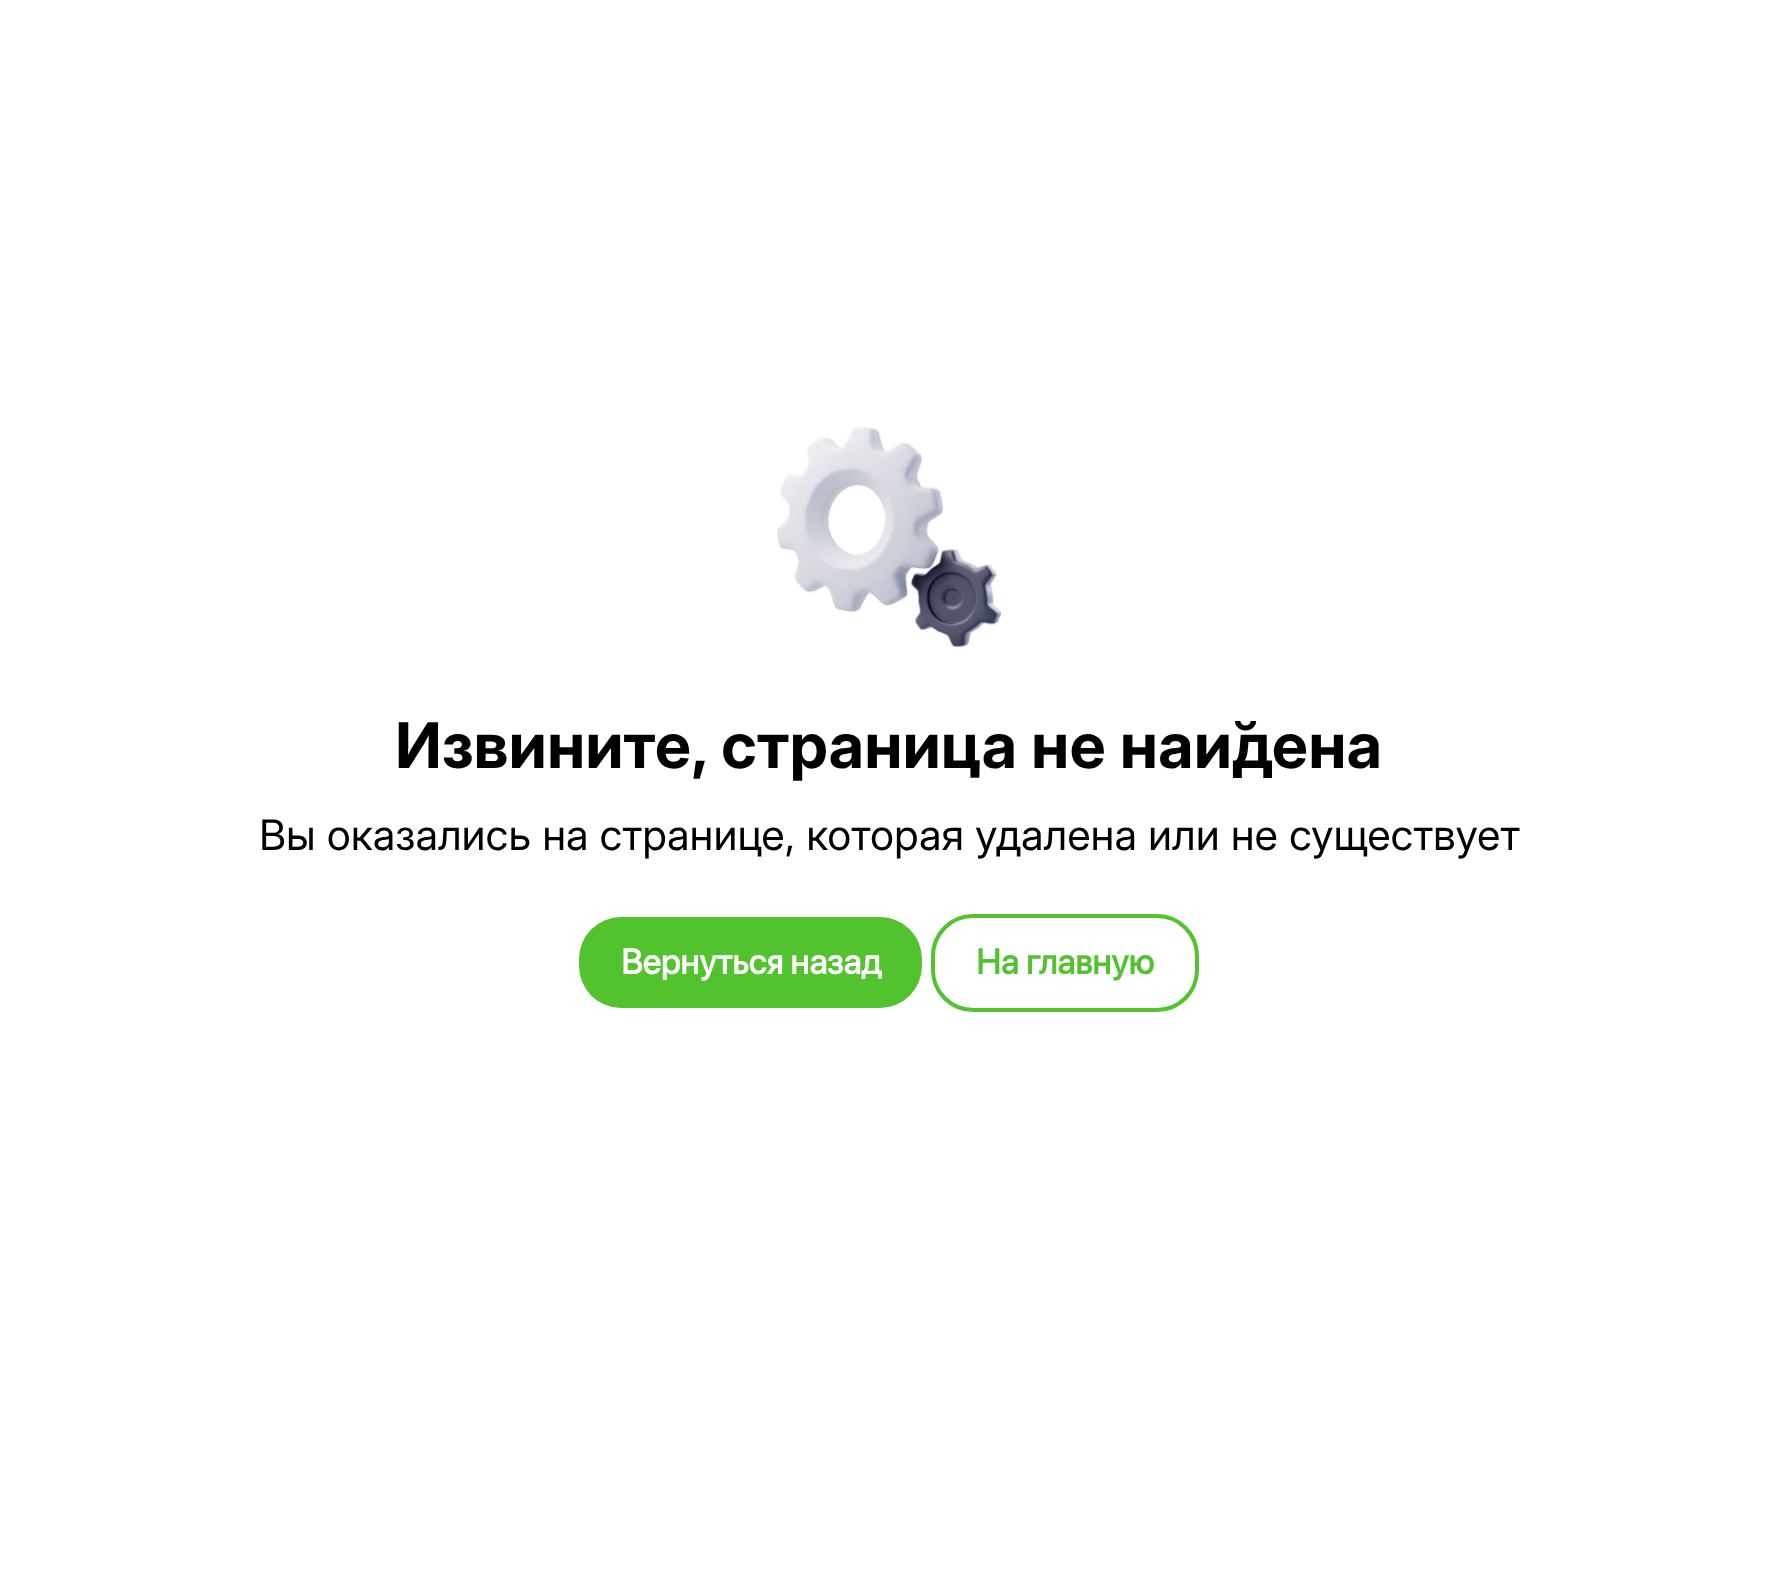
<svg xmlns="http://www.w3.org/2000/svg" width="1777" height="1577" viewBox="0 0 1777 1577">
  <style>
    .t1 { font: bold 63px Inter; fill: #000; }
    .t2 { font: 42px Inter; fill: #000; }
    .t3 { font: bold 35px SF Pro Display; fill: #fff; }
    .t4 { font: bold 35px SF Pro Display; fill: #52c32f; }
  </style>
  <rect width="100%" height="100%" fill="#fff"/>
  <image x="777" y="427" width="224" height="221" href="images/1.png"/>
  <text x="395" y="768" class="t1">Извините, страница не найдена</text>
  <text x="259" y="850" class="t2">Вы оказались на странице, которая удалена или не существует</text>
  <rect x="579" y="917" width="343" height="91" rx="42" fill="#52c32f"/>
  <text x="621" y="974" class="t3">Вернуться назад</text>
  <rect x="933" y="916" width="264" height="94" rx="40" fill="none" stroke="#52c32f" stroke-width="4"/>
  <text x="976" y="974" class="t4">На главную</text>
</svg>
